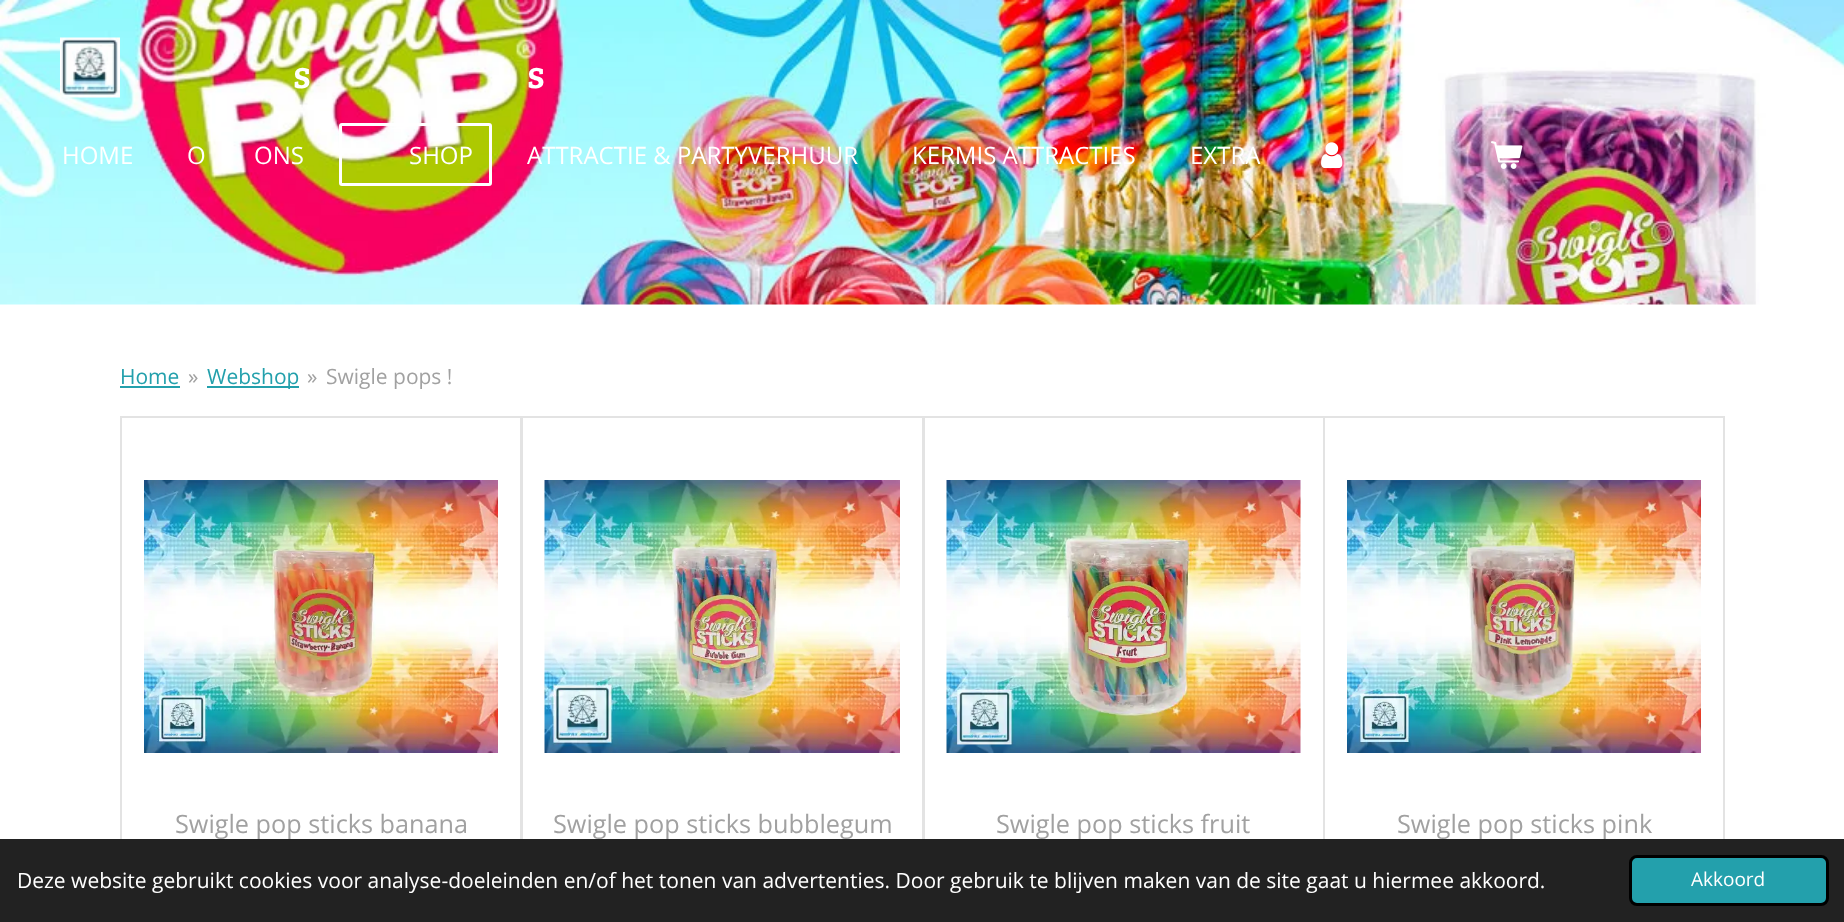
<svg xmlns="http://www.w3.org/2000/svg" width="1844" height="922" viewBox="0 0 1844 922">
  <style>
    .t1 { font: 39px Bree Serif; fill: #fff; }
    .t2 { font: 24px Open Sans; fill: #fff; }
    .t3 { font: 21px Open Sans; fill: #23a0ac; }
    .t4 { font: 21px Open Sans; fill: #a1a1a1; }
    .t5 { font: 25.25px Open Sans; fill: #a1a1a1; }
    .t6 { font: 21px Open Sans; fill: #fff; }
    .t7 { font: 19px Open Sans; fill: #fff; }
  </style>
  <rect width="100%" height="100%" fill="#fff"/>
  <image x="0" y="0" width="1844" height="305" href="images/1.png"/>
  <image x="60" y="37" width="60" height="61" href="images/2.png"/>
  <text x="293" y="88" class="t1">s</text>
  <text x="527" y="88" class="t1">s</text>
  <text x="62" y="164" class="t2">HOME</text>
  <text x="187" y="164" class="t2">O</text>
  <text x="254" y="164" class="t2">ONS</text>
  <rect x="340.5" y="124.5" width="150" height="60" rx="1.5" fill="none" stroke="#fff" stroke-width="3"/>
  <text x="409" y="164" class="t2">SHOP</text>
  <text x="527" y="164" class="t2">ATTRACTIE &amp; PARTYVERHUUR</text>
  <text x="912" y="164" class="t2">KERMIS ATTRACTIES</text>
  <text x="1190" y="164" class="t2">EXTRA</text>
  <image x="1321" y="142" width="22" height="27" href="images/3.png"/>
  <image x="1491" y="141" width="32" height="28" href="images/4.png"/>
  <text x="120" y="384" class="t3">Home</text>
  <rect x="120" y="386" width="60" height="2" fill="#23a0ac"/>
  <text x="188" y="384" class="t4">»</text>
  <rect x="207" y="386" width="92" height="2" fill="#23a0ac"/>
  <text x="207" y="384" class="t3">Webshop</text>
  <text x="307" y="384" class="t4">»</text>
  <text x="326" y="384" class="t4">Swigle pops !</text>
  <rect x="121" y="417" width="400" height="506" fill="none" stroke="#e3e3e3" stroke-width="2"/>
  <image x="144" y="480" width="354" height="273" href="images/5.png"/>
  <text x="175" y="833" class="t5">Swigle pop sticks banana</text>
  <rect x="522" y="417" width="401" height="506" fill="none" stroke="#e3e3e3" stroke-width="2"/>
  <image x="544" y="480" width="356" height="273" href="images/6.png"/>
  <text x="553" y="833" class="t5">Swigle pop sticks bubblegum</text>
  <rect x="924" y="417" width="400" height="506" fill="none" stroke="#e3e3e3" stroke-width="2"/>
  <image x="946" y="480" width="355" height="273" href="images/7.png"/>
  <text x="996" y="833" class="t5">Swigle pop sticks fruit</text>
  <rect x="1324" y="417" width="400" height="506" fill="none" stroke="#e3e3e3" stroke-width="2"/>
  <image x="1347" y="480" width="354" height="273" href="images/8.png"/>
  <text x="1397" y="833" class="t5">Swigle pop sticks pink</text>
  <rect x="0" y="839" width="1844" height="83" fill="#222"/>
  <text x="17" y="888" class="t6">Deze website gebruikt cookies voor analyse-doeleinden en/of het tonen van advertenties. Door gebruik te blijven maken van de site gaat u hiermee akkoord.</text>
  <rect x="1630.5" y="856.5" width="197" height="48" rx="6.5" fill="#23a0ac" stroke="#000" stroke-width="3"/>
  <text x="1691" y="886" class="t7">Akkoord</text>
</svg>
